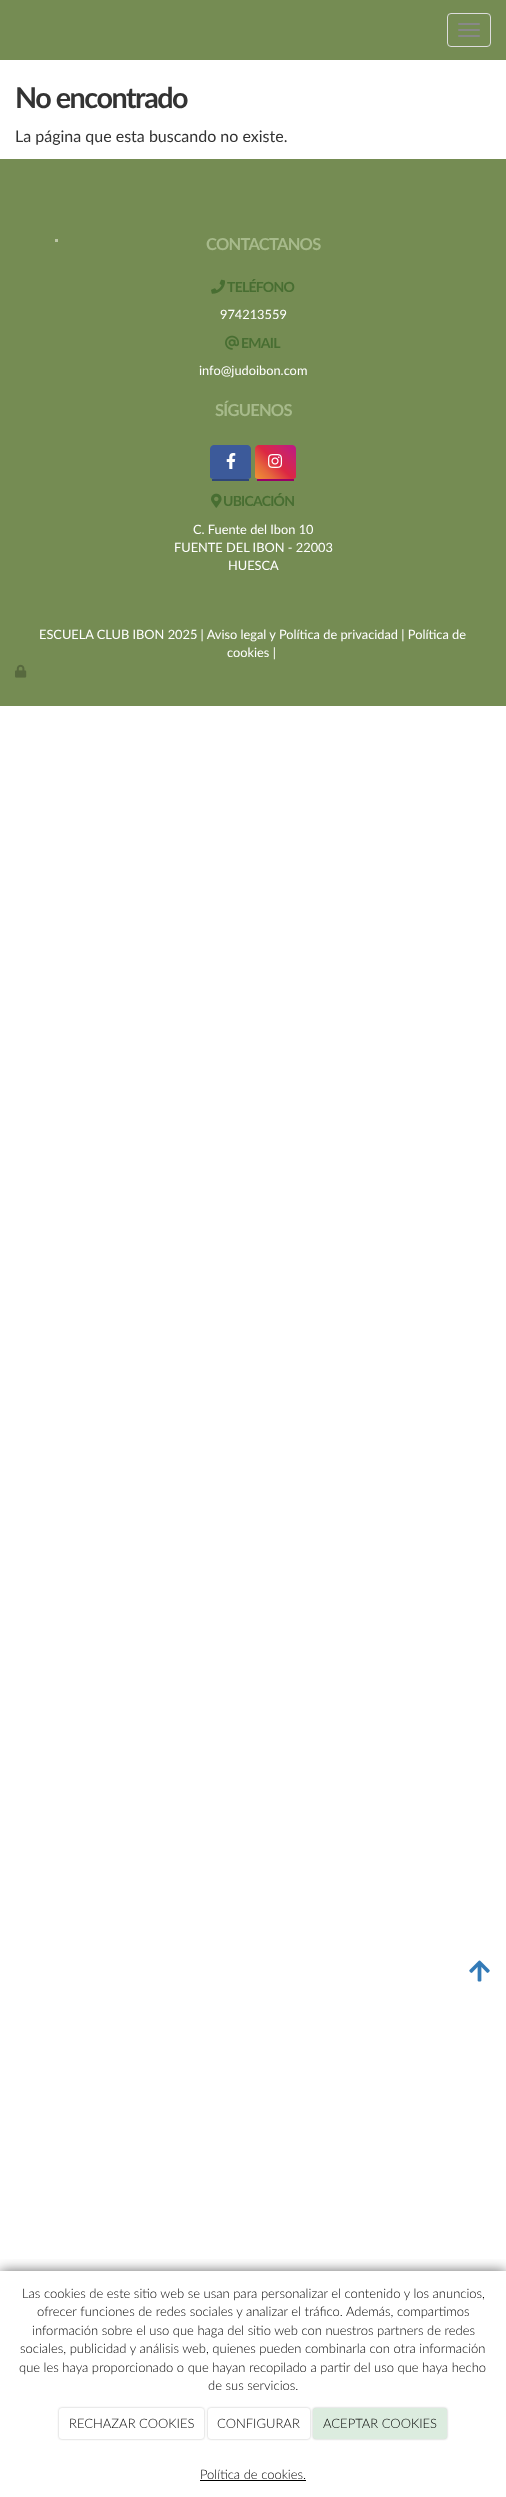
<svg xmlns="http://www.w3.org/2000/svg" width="506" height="2497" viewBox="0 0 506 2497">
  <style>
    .t1 { font: bold 28.75px Lato; letter-spacing: -1.5px; fill: #333; }
    .t2 { font: 16px Lato; fill: #333; }
    .t3 { font: bold 16.5px Lato; letter-spacing: -0.75px; fill: #a7ba8b; }
    .t4 { font: bold 14px Lato; letter-spacing: -0.75px; fill: #486e32; }
    .t5 { font: 12.8px Lato; fill: #fff; }
    .t6 { font: 300 13px Lato; fill: #000; }
  </style>
  <defs>
    <clipPath id="clip1"><rect x="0" y="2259" width="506" height="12"/></clipPath>
  </defs>
  <rect width="100%" height="100%" fill="#fff"/>
  <rect x="0" y="0" width="506" height="60" fill="#758c53"/>
  <rect x="447.5" y="13.5" width="43" height="33" rx="3.5" fill="none" stroke="#ddd"/>
  <rect x="458" y="23" width="22" height="2" rx="1" fill="#888"/>
  <rect x="458" y="29" width="22" height="2" rx="1" fill="#888"/>
  <rect x="458" y="35" width="22" height="2" rx="1" fill="#888"/>
  <text x="15" y="108" class="t1">No encontrado</text>
  <text x="15" y="142" class="t2">La página que esta buscando no existe.</text>
  <rect x="0" y="159" width="506" height="547" fill="#758c53"/>
  <rect x="55" y="239" width="3" height="3" fill="#bbc5a6"/>
  <text x="206" y="250" class="t3">CONTACTANOS</text>
  <image x="211" y="279" width="14" height="15" href="images/1.png"/>
  <text x="227" y="292" class="t4">TELÉFONO</text>
  <text x="220" y="319" class="t5">974213559</text>
  <image x="225" y="335" width="14" height="15" href="images/2.png"/>
  <text x="241" y="348" class="t4">EMAIL</text>
  <text x="199" y="375" class="t5">info@judoibon.com</text>
  <text x="215" y="416" class="t3">SÍGUENOS</text>
  <path d="M214 445H247C249 445 251 447 251 449V477C251 478 249 479 247 479H214C212 479 210 478 210 477V449C210 447 212 445 214 445Z" fill="#3c5a9a"/>
  <rect x="212" y="479" width="37" height="2" fill="#2f4678"/>
  <image x="226" y="453" width="10" height="16" href="images/3.png"/>
  <image x="255" y="445" width="41" height="34" href="images/4.png"/>
  <rect x="257" y="479" width="37" height="2" fill="#906"/>
  <image x="268" y="454" width="15" height="14" href="images/5.png"/>
  <image x="211" y="493" width="11" height="15" href="images/6.png"/>
  <text x="223" y="506" class="t4">UBICACIÓN</text>
  <text x="193" y="534" class="t5">C. Fuente del Ibon 10</text>
  <text x="174" y="552" class="t5">FUENTE DEL IBON - 22003</text>
  <text x="228" y="570" class="t5">HUESCA</text>
  <text x="39" y="639" class="t5">ESCUELA CLUB IBON 2025 | Aviso legal y Política de privacidad | Política de</text>
  <text x="227" y="657" class="t5">cookies |</text>
  <image x="15" y="664" width="12" height="14" href="images/7.png"/>
  <image x="469" y="1960" width="21" height="22" href="images/8.png"/>
  <g clip-path="url(#clip1)">
    <rect x="0" y="2271" width="506" height="226" fill="#00000099" filter="blur(6.5px)"/>
  </g>
  <text x="22" y="2298" class="t6">Las cookies de este sitio web se usan para personalizar el contenido y los anuncios,</text>
  <text x="37" y="2316" class="t6">ofrecer funciones de redes sociales y analizar el tráfico. Además, compartimos</text>
  <text x="32" y="2335" class="t6">información sobre el uso que haga del sitio web con nuestros partners de redes</text>
  <text x="20" y="2353" class="t6">sociales, publicidad y análisis web, quienes pueden combinarla con otra información</text>
  <text x="19" y="2372" class="t6">que les haya proporcionado o que hayan recopilado a partir del uso que haya hecho</text>
  <text x="208" y="2390" class="t6">de sus servicios.</text>
  <rect x="59" y="2408" width="145" height="31" rx="3" fill="#00000040" filter="blur(1px)"/>
  <rect x="59" y="2408" width="145" height="31" rx="3" fill="#fff"/>
  <text x="69" y="2428" class="t6">RECHAZAR COOKIES</text>
  <rect x="208" y="2408" width="102" height="31" rx="3" fill="#00000040" filter="blur(1px)"/>
  <rect x="208" y="2408" width="102" height="31" rx="3" fill="#fff"/>
  <text x="217" y="2428" class="t6">CONFIGURAR</text>
  <rect x="313" y="2408" width="134" height="31" rx="3" fill="#00000040" filter="blur(1px)"/>
  <rect x="313" y="2408" width="134" height="31" rx="3" fill="#dcecdf"/>
  <text x="323" y="2428" class="t6">ACEPTAR COOKIES</text>
  <text x="200" y="2479" class="t6">Política de cookies.</text>
  <rect x="200" y="2480" width="106" height="1" fill="#000"/>
</svg>
